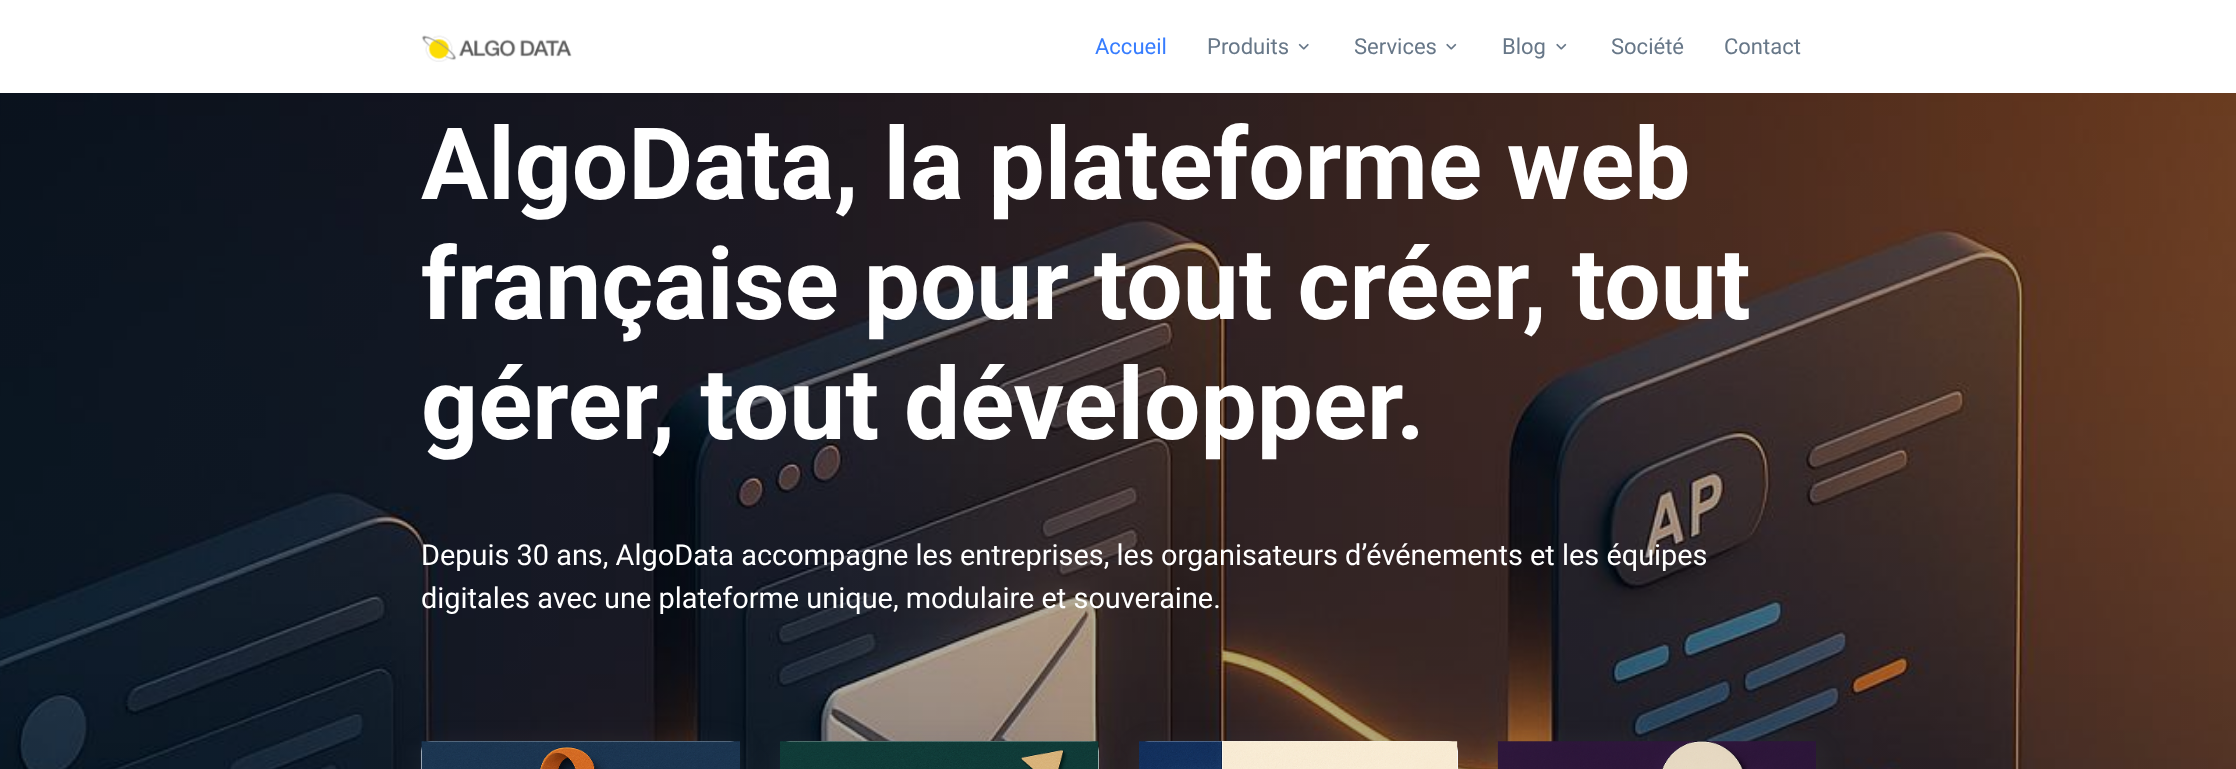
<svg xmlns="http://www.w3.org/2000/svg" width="2236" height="769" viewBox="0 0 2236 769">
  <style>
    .t1 { font: 22px Roboto; fill: #377dff; }
    .t2 { font: 22px Roboto; fill: #677788; }
    .t3 { font: bold 100px Roboto; fill: #fff; }
    .t4 { font: 28.9px Roboto; fill: #fff; }
  </style>
  <rect width="100%" height="100%" fill="#fff"/>
  <image x="421" y="35" width="151" height="27" href="images/1.png"/>
  <text x="1095" y="54" class="t1">Accueil</text>
  <text x="1207" y="54" class="t2">Produits</text>
  <image x="1298" y="43" width="11" height="7" href="images/2.png"/>
  <text x="1354" y="54" class="t2">Services</text>
  <image x="1446" y="43" width="11" height="7" href="images/3.png"/>
  <text x="1502" y="54" class="t2">Blog</text>
  <image x="1556" y="43" width="11" height="7" href="images/3.png"/>
  <text x="1611" y="54" class="t2">Société</text>
  <text x="1724" y="54" class="t2">Contact</text>
  <image x="0" y="93" width="2236" height="676" href="images/4.png"/>
  <text x="421" y="199" class="t3">AlgoData, la plateforme web</text>
  <text x="421" y="319" class="t3">française pour tout créer, tout</text>
  <text x="421" y="439" class="t3">gérer, tout développer.</text>
  <text x="421" y="565" class="t4">Depuis 30 ans, AlgoData accompagne les entreprises, les organisateurs d’événements et les équipes</text>
  <text x="421" y="608" class="t4">digitales avec une plateforme unique, modulaire et souveraine.</text>
  <rect x="421" y="749" width="319" height="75" rx="10" fill="#8c98a41f" filter="blur(15px)"/>
  <rect x="421" y="741" width="319" height="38" rx="10" fill="#f7faff"/>
  <image x="421" y="741" width="319" height="28" href="images/5.png"/>
  <rect x="780" y="749" width="319" height="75" rx="10" fill="#8c98a41f" filter="blur(15px)"/>
  <rect x="780" y="741" width="319" height="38" rx="10" fill="#fff"/>
  <image x="780" y="741" width="319" height="28" href="images/6.png"/>
  <rect x="1139" y="749" width="319" height="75" rx="10" fill="#8c98a41f" filter="blur(15px)"/>
  <rect x="1139" y="741" width="319" height="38" rx="10" fill="#f7faff"/>
  <image x="1139" y="741" width="319" height="28" href="images/7.png"/>
  <rect x="1498" y="749" width="318" height="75" rx="10" fill="#8c98a41f" filter="blur(15px)"/>
  <image x="1497" y="741" width="319" height="28" href="images/8.png"/>
</svg>
